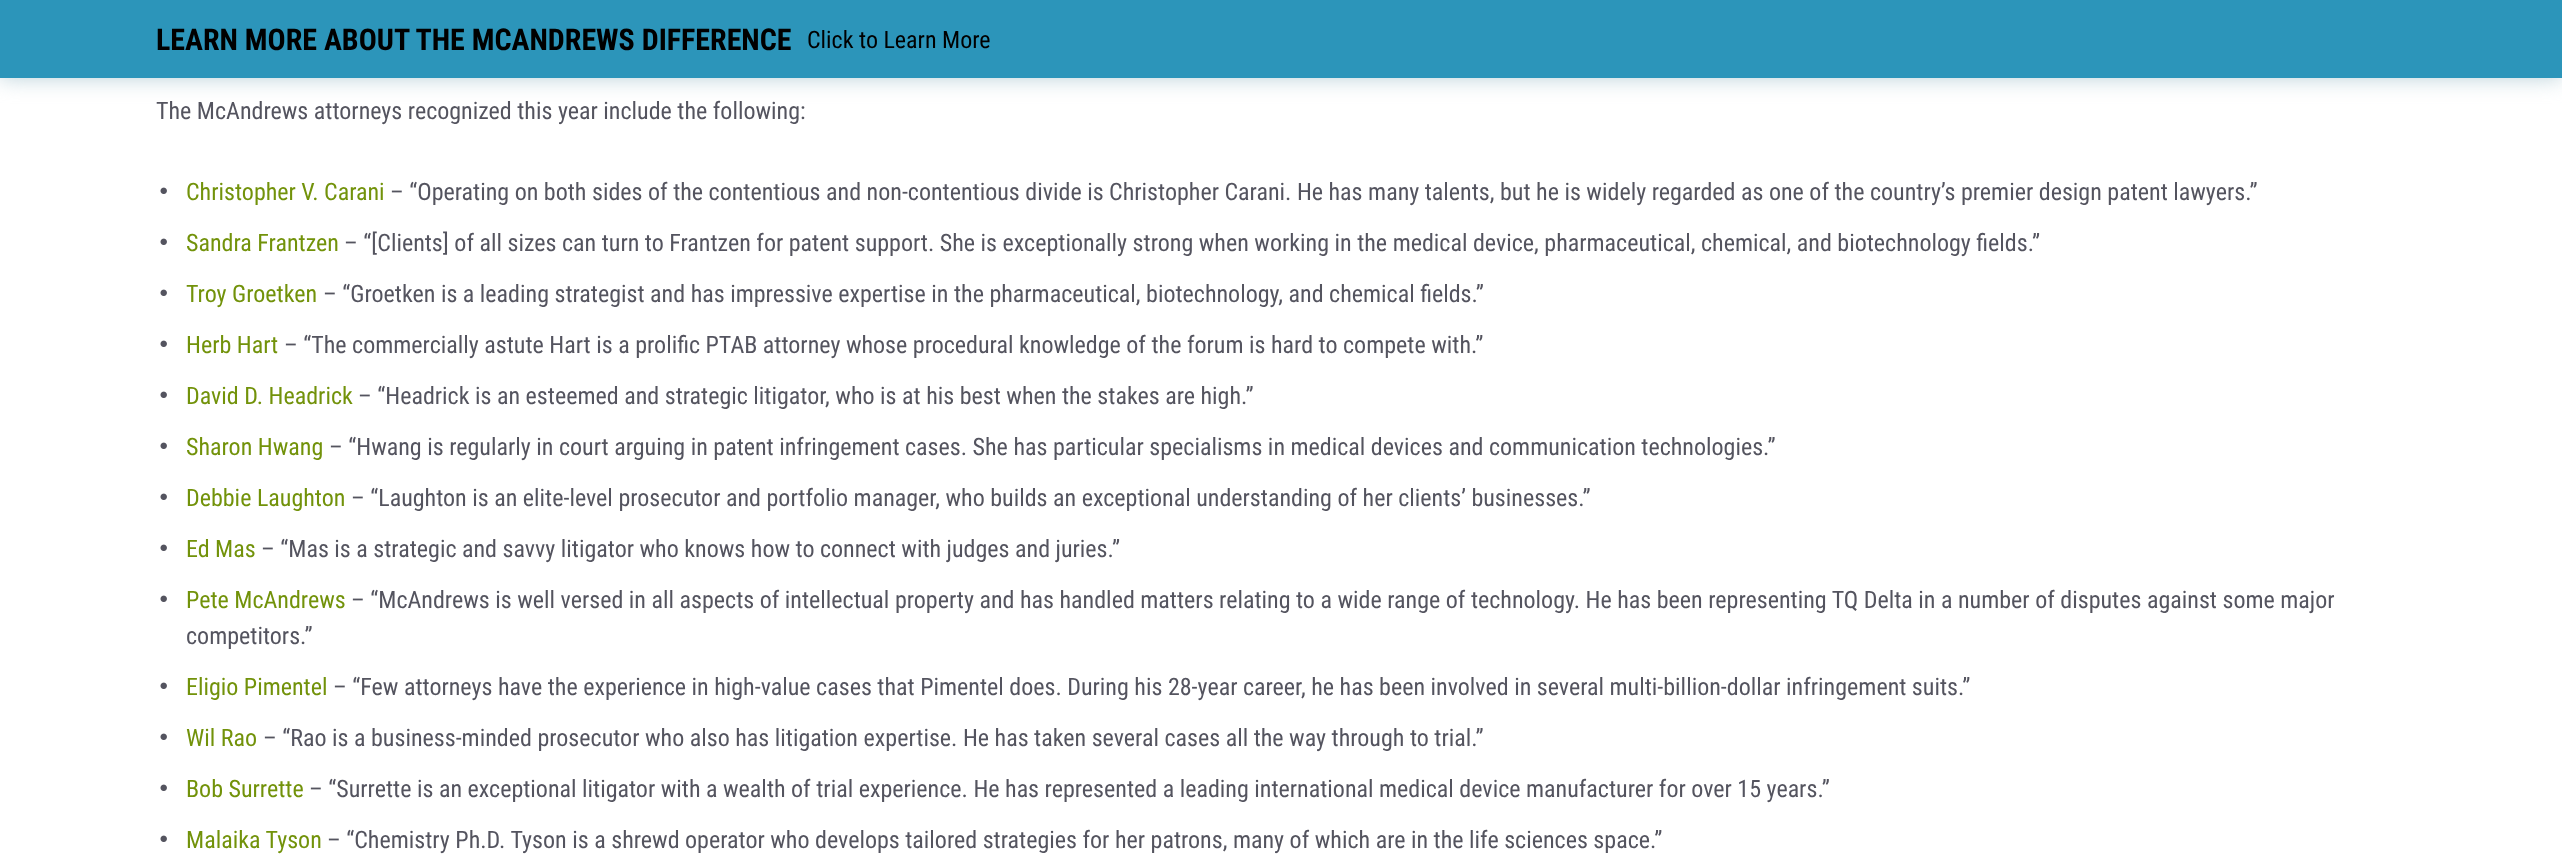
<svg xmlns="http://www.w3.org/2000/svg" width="2562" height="860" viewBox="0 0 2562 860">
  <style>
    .t1 { font: bold 30px Roboto Condensed; fill: #000; }
    .t2 { font: 24px Roboto Condensed; fill: #000; }
    .t3 { font: 24px Roboto Condensed; fill: #54545f; }
    .t4 { font: 24px Roboto Condensed; fill: #72920a; }
  </style>
  <rect width="100%" height="100%" fill="#fff"/>
  <rect x="0" y="0" width="2562" height="78" fill="#b8d0d8" filter="blur(10.5px)"/>
  <rect x="0" y="0" width="2562" height="78" fill="#2c95ba"/>
  <text x="156" y="50" class="t1">LEARN MORE ABOUT THE MCANDREWS DIFFERENCE</text>
  <text x="807" y="48" class="t2">Click to Learn More</text>
  <text x="156" y="119" class="t3">The McAndrews attorneys recognized this year include the following:</text>
  <image x="160" y="187" width="7" height="7" href="images/1.png"/>
  <text x="186" y="200" class="t4">Christopher V. Carani</text>
  <text x="390" y="200" class="t3">– “Operating on both sides of the contentious and non-contentious divide is Christopher Carani. He has many talents, but he is widely regarded as one of the country’s premier design patent lawyers.”</text>
  <image x="160" y="238" width="7" height="7" href="images/1.png"/>
  <text x="186" y="251" class="t4">Sandra Frantzen</text>
  <text x="344" y="251" class="t3">– “[Clients] of all sizes can turn to Frantzen for patent support. She is exceptionally strong when working in the medical device, pharmaceutical, chemical, and biotechnology fields.”</text>
  <image x="160" y="289" width="7" height="7" href="images/1.png"/>
  <text x="186" y="302" class="t4">Troy Groetken</text>
  <text x="323" y="302" class="t3">– “Groetken is a leading strategist and has impressive expertise in the pharmaceutical, biotechnology, and chemical fields.”</text>
  <image x="160" y="340" width="7" height="7" href="images/1.png"/>
  <text x="186" y="353" class="t4">Herb Hart</text>
  <text x="284" y="353" class="t3">– “The commercially astute Hart is a prolific PTAB attorney whose procedural knowledge of the forum is hard to compete with.”</text>
  <image x="160" y="391" width="7" height="7" href="images/1.png"/>
  <text x="186" y="404" class="t4">David D. Headrick</text>
  <text x="358" y="404" class="t3">– “Headrick is an esteemed and strategic litigator, who is at his best when the stakes are high.”</text>
  <image x="160" y="442" width="7" height="7" href="images/1.png"/>
  <text x="186" y="455" class="t4">Sharon Hwang</text>
  <text x="329" y="455" class="t3">– “Hwang is regularly in court arguing in patent infringement cases. She has particular specialisms in medical devices and communication technologies.”</text>
  <image x="160" y="493" width="7" height="7" href="images/1.png"/>
  <text x="186" y="506" class="t4">Debbie Laughton</text>
  <text x="351" y="506" class="t3">– “Laughton is an elite-level prosecutor and portfolio manager, who builds an exceptional understanding of her clients’ businesses.”</text>
  <image x="160" y="544" width="7" height="7" href="images/1.png"/>
  <text x="186" y="557" class="t4">Ed Mas</text>
  <text x="261" y="557" class="t3">– “Mas is a strategic and savvy litigator who knows how to connect with judges and juries.”</text>
  <image x="160" y="595" width="7" height="7" href="images/1.png"/>
  <text x="186" y="608" class="t4">Pete McAndrews</text>
  <text x="351" y="608" class="t3">– “McAndrews is well versed in all aspects of intellectual property and has handled matters relating to a wide range of technology. He has been representing TQ Delta in a number of disputes against some major</text>
  <text x="186" y="644" class="t3">competitors.”</text>
  <image x="160" y="682" width="7" height="7" href="images/1.png"/>
  <text x="186" y="695" class="t4">Eligio Pimentel</text>
  <text x="333" y="695" class="t3">– “Few attorneys have the experience in high-value cases that Pimentel does. During his 28-year career, he has been involved in several multi-billion-dollar infringement suits.”</text>
  <image x="160" y="733" width="7" height="7" href="images/1.png"/>
  <text x="186" y="746" class="t4">Wil Rao</text>
  <text x="263" y="746" class="t3">– “Rao is a business-minded prosecutor who also has litigation expertise. He has taken several cases all the way through to trial.”</text>
  <image x="160" y="784" width="7" height="7" href="images/1.png"/>
  <text x="186" y="797" class="t4">Bob Surrette</text>
  <text x="309" y="797" class="t3">– “Surrette is an exceptional litigator with a wealth of trial experience. He has represented a leading international medical device manufacturer for over 15 years.”</text>
  <image x="160" y="835" width="7" height="7" href="images/1.png"/>
  <text x="186" y="848" class="t4">Malaika Tyson</text>
  <text x="327" y="848" class="t3">– “Chemistry Ph.D. Tyson is a shrewd operator who develops tailored strategies for her patrons, many of which are in the life sciences space.”</text>
</svg>
